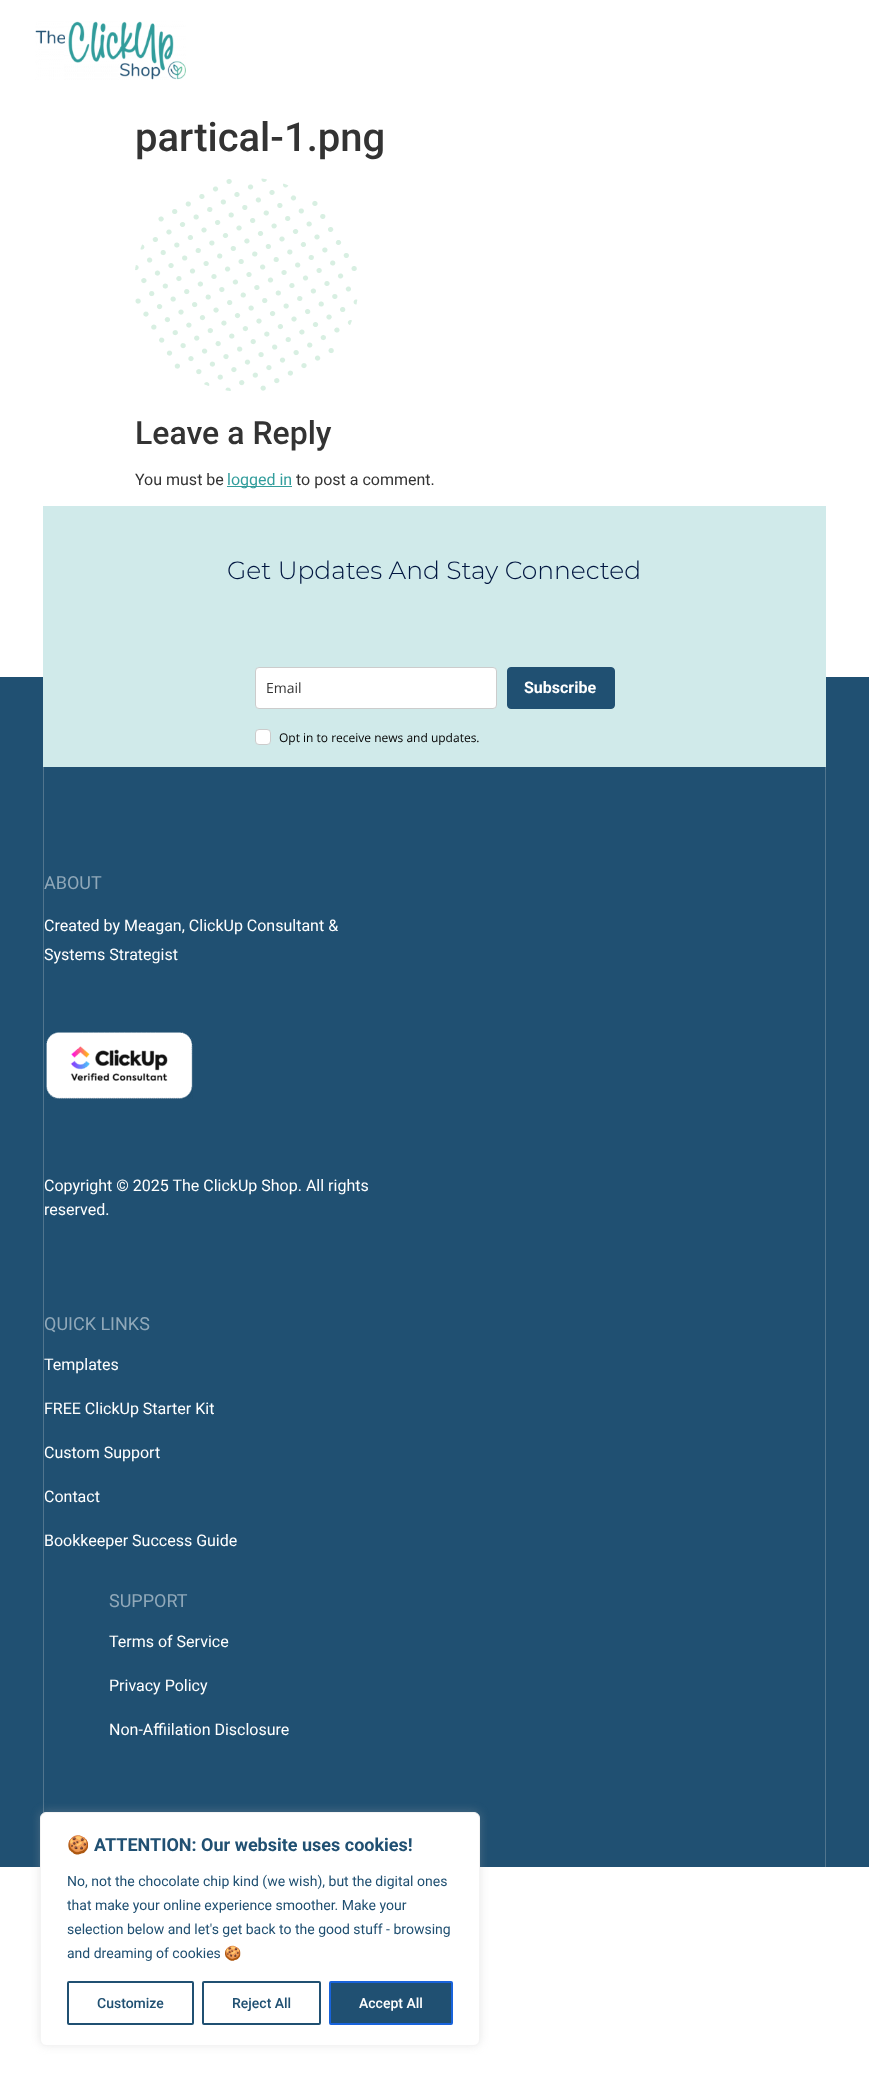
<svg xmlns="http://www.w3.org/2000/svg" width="869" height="2086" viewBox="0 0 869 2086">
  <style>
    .t1 { font: 500 40px Roboto; fill: #333; }
    .t2 { font: 500 32px Roboto; fill: #333; }
    .t3 { font: 16px Roboto; fill: #333; }
    .t4 { font: 16px Roboto; fill: #329d9c; }
    .t5 { font: 300 25px Montserrat; fill: #011640; }
    .t6 { font: 14px Open Sans; fill: #333; }
    .t7 { font: bold 16px Roboto; fill: #fff; }
    .t8 { font: 12px Open Sans; fill: #000; }
    .t9 { font: 18px Roboto; fill: #90a8b9; }
    .t10 { font: 16px Roboto; fill: #fff; }
    .t11 { font: bold 18px Noto Color Emoji; fill: #205072; }
    .t12 { font: bold 18px Roboto; fill: #205072; }
    .t13 { font: 14px Roboto; fill: #205072; }
    .t14 { font: 14px Noto Color Emoji; fill: #205072; }
    .t15 { font: 500 14px Roboto; fill: #205072; }
    .t16 { font: 500 14px Roboto; fill: #fff; }
  </style>
  <rect width="100%" height="100%" fill="#fff"/>
  <image x="35" y="21" width="151" height="59" href="images/1.png"/>
  <text x="135" y="151" class="t1">partical-1.png</text>
  <image x="135" y="178" width="223" height="213" href="images/2.png"/>
  <text x="135" y="444" class="t2">Leave a Reply</text>
  <text x="135" y="485" class="t3">You must be</text>
  <rect x="227" y="486" width="65" height="1" fill="#329d9c"/>
  <text x="227" y="485" class="t4">logged in</text>
  <text x="296" y="485" class="t3">to post a comment.</text>
  <rect x="0" y="677" width="869" height="1190" fill="#205072"/>
  <rect x="43" y="506" width="783" height="261" fill="#d0eaea"/>
  <text x="227" y="579" class="t5">Get Updates And Stay Connected</text>
  <rect x="255.5" y="667.5" width="241" height="41" rx="3.5" fill="#fff" stroke="#ccc"/>
  <text x="266" y="693" class="t6">Email</text>
  <rect x="507.5" y="667.5" width="107" height="41" rx="3.5" fill="#205072" stroke="#205072"/>
  <text x="524" y="693" class="t7">Subscribe</text>
  <rect x="255.5" y="729.5" width="15" height="15" rx="3.5" fill="#fff" stroke="#ccc"/>
  <text x="279" y="742" class="t8">Opt in to receive news and updates.</text>
  <rect x="825" y="767" width="1" height="1100" fill="#51758e"/>
  <rect x="43" y="767" width="1" height="1046" fill="#51758e"/>
  <text x="44" y="889" class="t9">ABOUT</text>
  <text x="44" y="931" class="t10">Created by Meagan, ClickUp Consultant &amp;</text>
  <text x="44" y="960" class="t10">Systems Strategist</text>
  <image x="46" y="1032" width="147" height="67" href="images/3.png"/>
  <text x="44" y="1191" class="t10">Copyright © 2025 The ClickUp Shop. All rights</text>
  <text x="44" y="1215" class="t10">reserved.</text>
  <text x="44" y="1330" class="t9">QUICK LINKS</text>
  <text x="44" y="1370" class="t10">Templates</text>
  <text x="44" y="1414" class="t10">FREE ClickUp Starter Kit</text>
  <text x="44" y="1458" class="t10">Custom Support</text>
  <text x="44" y="1502" class="t10">Contact</text>
  <text x="44" y="1546" class="t10">Bookkeeper Success Guide</text>
  <text x="109" y="1607" class="t9">SUPPORT</text>
  <text x="109" y="1647" class="t10">Terms of Service</text>
  <text x="109" y="1691" class="t10">Privacy Policy</text>
  <text x="109" y="1735" class="t10">Non-Affiilation Disclosure</text>
  <rect x="40" y="1811" width="440" height="234" rx="6" fill="#acabab4d" filter="blur(5px)"/>
  <rect x="40.5" y="1812.5" width="439" height="233" rx="5.5" fill="#fff" stroke="#f4f4f4"/>
  <text x="67" y="1851" class="t11">🍪</text>
  <text x="94" y="1851" class="t12">ATTENTION: Our website uses cookies!</text>
  <text x="67" y="1886" class="t13">No, not the chocolate chip kind (we wish), but the digital ones</text>
  <text x="67" y="1910" class="t13">that make your online experience smoother. Make your</text>
  <text x="67" y="1934" class="t13">selection below and let's get back to the good stuff - browsing</text>
  <text x="67" y="1958" class="t13">and dreaming of cookies</text>
  <text x="224" y="1958" class="t14">🍪</text>
  <rect x="68" y="1982" width="125" height="42" rx="1" fill="none" stroke="#205072" stroke-width="2"/>
  <text x="97" y="2008" class="t15">Customize</text>
  <rect x="203" y="1982" width="117" height="42" rx="1" fill="none" stroke="#205072" stroke-width="2"/>
  <text x="232" y="2008" class="t15">Reject All</text>
  <rect x="330" y="1982" width="122" height="42" rx="1" fill="#205072" stroke="#1863dc" stroke-width="2"/>
  <text x="359" y="2008" class="t16">Accept All</text>
</svg>
